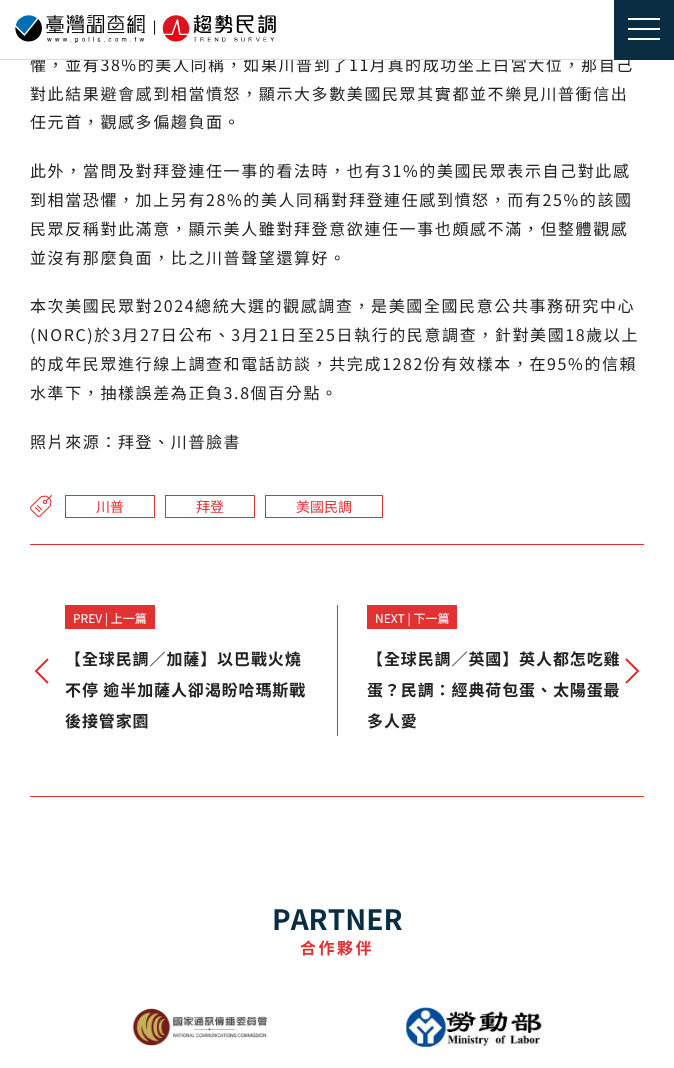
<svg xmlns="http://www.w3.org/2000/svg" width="674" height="1068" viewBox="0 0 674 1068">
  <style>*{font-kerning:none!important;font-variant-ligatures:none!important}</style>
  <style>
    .t1 { font: 16px Noto Sans TC; letter-spacing: 1.6px; fill: #222; }
    .t2 { font: 14px Noto Sans TC; fill: #e13133; }
    .t3 { font: 12px Noto Sans TC; fill: #fff; }
    .t4 { font: bold 16px Noto Sans TC; letter-spacing: 0.9px; fill: #222; }
    .t5 { font: bold 28px Noto Sans TC; fill: #092e43; }
    .t6 { font: bold 16px Noto Sans TC; letter-spacing: 2.5px; fill: #e13133; }
  </style>
  <rect width="100%" height="100%" fill="#fff"/>
  <text x="30" y="71" class="t1">懼，並有38%的美人同稱，如果川普到了11月真的成功坐上白宮大位，那自己</text>
  <rect x="32" y="57" width="576" height="2" fill="#fff"/>
  <rect x="0" y="59" width="614" height="1" fill="#d7d9db"/>
  <image x="15" y="15" width="261" height="28" href="images/1.png"/>
  <rect x="614" y="0" width="60" height="60" fill="#092e43"/>
  <rect x="628" y="18" width="32" height="2" fill="#fff"/>
  <rect x="628" y="28" width="32" height="2" fill="#fff"/>
  <rect x="628" y="38" width="32" height="2" fill="#fff"/>
  <text x="30" y="100" class="t1">對此結果避會感到相當憤怒，顯示大多數美國民眾其實都並不樂見川普衝信出</text>
  <text x="30" y="128" class="t1">任元首，觀感多偏趨負面。</text>
  <text x="30" y="177" class="t1">此外，當問及對拜登連任一事的看法時，也有31%的美國民眾表示自己對此感</text>
  <text x="30" y="206" class="t1">到相當恐懼，加上另有28%的美人同稱對拜登連任感到憤怒，而有25%的該國</text>
  <text x="30" y="235" class="t1">民眾反稱對此滿意，顯示美人雖對拜登意欲連任一事也頗感不滿，但整體觀感</text>
  <text x="30" y="264" class="t1">並沒有那麼負面，比之川普聲望還算好。</text>
  <text x="30" y="312" class="t1">本次美國民眾對2024總統大選的觀感調查，是美國全國民意公共事務研究中心</text>
  <text x="30" y="341" class="t1">(NORC)於3月27日公布、3月21日至25日執行的民意調查，針對美國18歲以上</text>
  <text x="30" y="370" class="t1">的成年民眾進行線上調查和電話訪談，共完成1282份有效樣本，在95%的信賴</text>
  <text x="30" y="399" class="t1">水準下，抽樣誤差為正負3.8個百分點。</text>
  <text x="30" y="448" class="t1">照片來源：拜登、川普臉書</text>
  <image x="30" y="495" width="22" height="22" href="images/2.png"/>
  <rect x="65.5" y="495.5" width="89" height="22" fill="none" stroke="#e13133"/>
  <text x="96" y="512" class="t2">川普</text>
  <rect x="165.5" y="495.5" width="89" height="22" fill="none" stroke="#e13133"/>
  <text x="196" y="512" class="t2">拜登</text>
  <rect x="265.5" y="495.5" width="117" height="22" fill="none" stroke="#e13133"/>
  <text x="296" y="512" class="t2">美國民調</text>
  <rect x="30" y="544" width="614" height="1" fill="#e13133"/>
  <path d="M48 683L36 671L48 659" fill="none" stroke="#e13133" stroke-width="2.1"/>
  <rect x="65" y="605" width="90" height="24" fill="#e13133"/>
  <text x="73" y="623" class="t3">PREV | 上一篇</text>
  <text x="65" y="665" class="t4">【全球民調／加薩】以巴戰火燒</text>
  <text x="65" y="696" class="t4">不停 逾半加薩人卻渴盼哈瑪斯戰</text>
  <text x="65" y="727" class="t4">後接管家園</text>
  <rect x="337" y="605" width="1" height="131" fill="#e13133"/>
  <rect x="367" y="605" width="90" height="24" fill="#e13133"/>
  <text x="375" y="623" class="t3">NEXT | 下一篇</text>
  <text x="367" y="665" class="t4">【全球民調／英國】英人都怎吃雞</text>
  <text x="367" y="696" class="t4">蛋？民調：經典荷包蛋、太陽蛋最</text>
  <text x="367" y="727" class="t4">多人愛</text>
  <path d="M626 659L638 671L626 683" fill="none" stroke="#e13133" stroke-width="2.1"/>
  <rect x="30" y="796" width="614" height="1" fill="#e13133"/>
  <text x="272" y="930" class="t5">PARTNER</text>
  <text x="300" y="954" class="t6">合作夥伴</text>
  <image x="132" y="1008" width="136" height="38" href="images/3.png"/>
  <image x="406" y="1007" width="137" height="40" href="images/4.png"/>
</svg>
